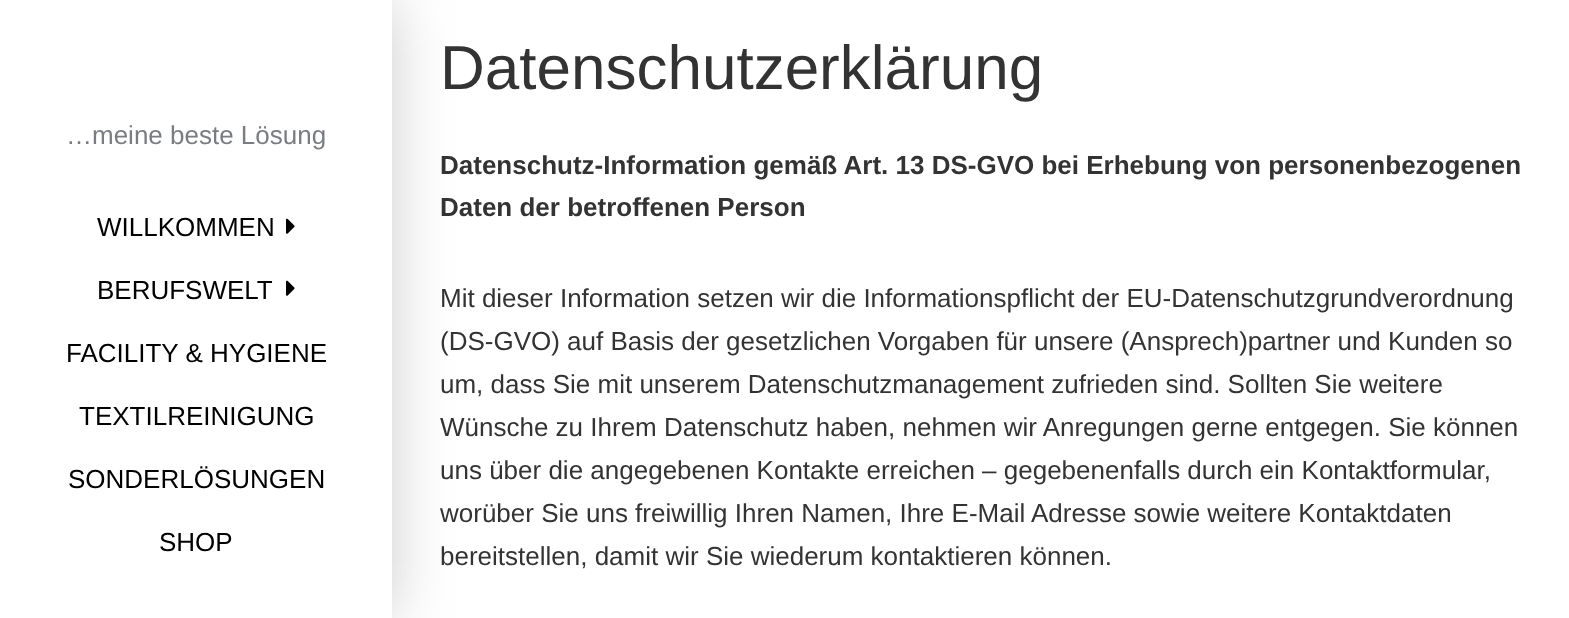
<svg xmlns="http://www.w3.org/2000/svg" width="1569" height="618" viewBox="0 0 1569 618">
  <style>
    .t1 { font: 26px Liberation Sans; fill: #797d82; }
    .t2 { font: 26px Liberation Sans; fill: #000; }
    .t3 { font: 62px Liberation Sans; fill: #333; }
    .t4 { font: bold 26px Liberation Sans; fill: #333; }
    .t5 { font: 26px Liberation Sans; fill: #333; }
  </style>
  <rect width="100%" height="100%" fill="#fff"/>
  <rect x="0" y="0" width="392" height="618" fill="#00000033" filter="blur(30px)"/>
  <rect x="0" y="0" width="392" height="618" fill="#fff"/>
  <text x="66" y="144" class="t1">…meine beste Lösung</text>
  <text x="97" y="236" class="t2">WILLKOMMEN</text>
  <image x="286" y="218" width="9" height="16" href="images/1.png"/>
  <text x="97" y="299" class="t2">BERUFSWELT</text>
  <image x="286" y="280" width="9" height="16" href="images/1.png"/>
  <text x="66" y="362" class="t2">FACILITY &amp; HYGIENE</text>
  <text x="79" y="425" class="t2">TEXTILREINIGUNG</text>
  <text x="68" y="488" class="t2">SONDERLÖSUNGEN</text>
  <text x="159" y="551" class="t2">SHOP</text>
  <text x="440" y="89" class="t3">Datenschutzerklärung</text>
  <text x="440" y="174" class="t4">Datenschutz-Information gemäß Art. 13 DS-GVO bei Erhebung von personenbezogenen</text>
  <text x="440" y="216" class="t4">Daten der betroffenen Person</text>
  <text x="440" y="307" class="t5">Mit dieser Information setzen wir die Informationspflicht der EU-Datenschutzgrundverordnung</text>
  <text x="440" y="350" class="t5">(DS-GVO) auf Basis der gesetzlichen Vorgaben für unsere (Ansprech)partner und Kunden so</text>
  <text x="440" y="393" class="t5">um, dass Sie mit unserem Datenschutzmanagement zufrieden sind. Sollten Sie weitere</text>
  <text x="440" y="436" class="t5">Wünsche zu Ihrem Datenschutz haben, nehmen wir Anregungen gerne entgegen. Sie können</text>
  <text x="440" y="479" class="t5">uns über die angegebenen Kontakte erreichen – gegebenenfalls durch ein Kontaktformular,</text>
  <text x="440" y="522" class="t5">worüber Sie uns freiwillig Ihren Namen, Ihre E-Mail Adresse sowie weitere Kontaktdaten</text>
  <text x="440" y="565" class="t5">bereitstellen, damit wir Sie wiederum kontaktieren können.</text>
</svg>
